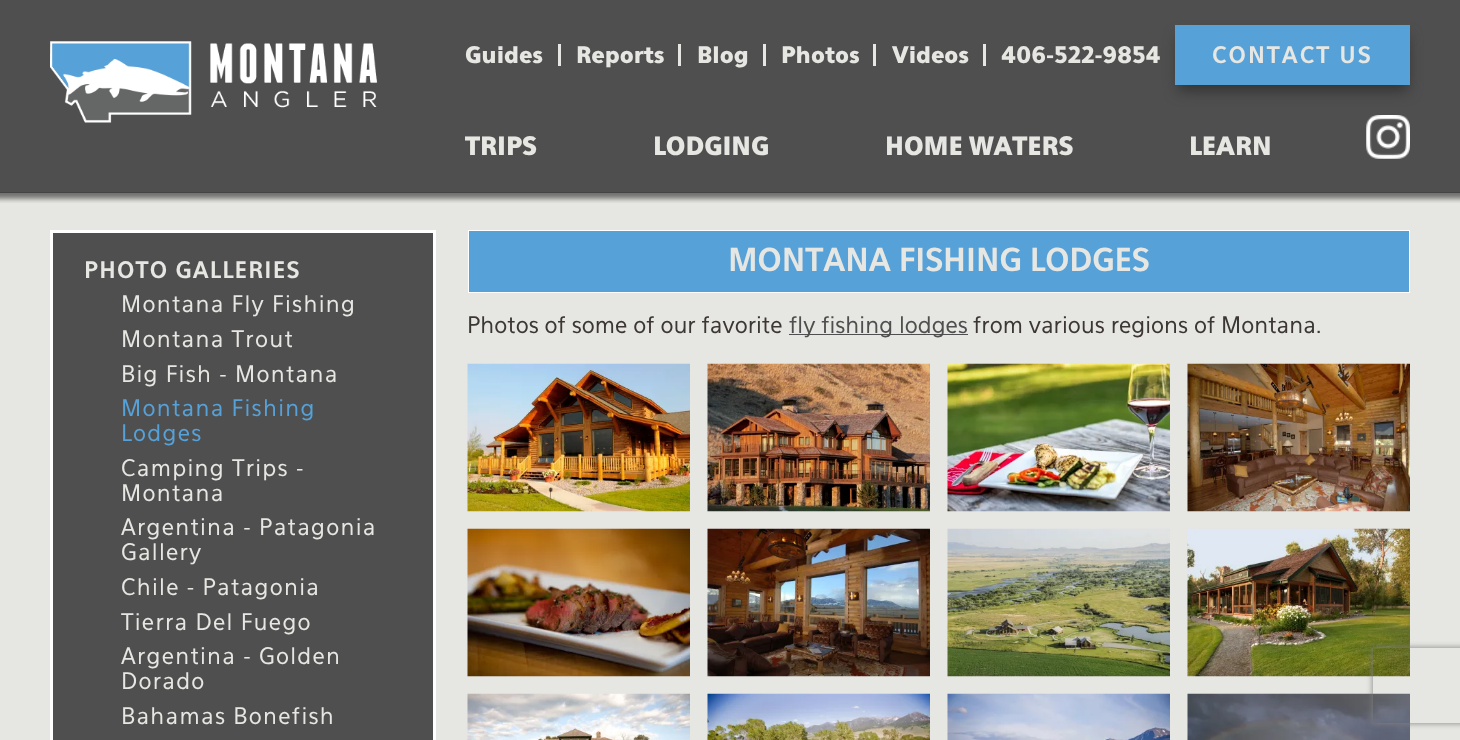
<svg xmlns="http://www.w3.org/2000/svg" width="1460" height="740" viewBox="0 0 1460 740">
  <style>
    .t1 { font: 900 22.5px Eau; fill: #e6e6e2; }
    .t2 { font: bold 22.5px Eau; letter-spacing: 2px; fill: #e6e6e2; }
    .t3 { font: 900 25px Eau; fill: #e6e6e2; }
    .t4 { font: bold 22.5px Eau; letter-spacing: 1.25px; fill: #e6e6e2; }
    .t5 { font: 22.5px Eau; letter-spacing: 1.25px; fill: #e6e6e2; }
    .t6 { font: 22.5px Eau; letter-spacing: 1.25px; fill: #55a1d8; }
    .t7 { font: bold 31.25px Eau; fill: #e6e6e2; }
    .t8 { font: 22.5px Eau; fill: #3d3733; }
    .t9 { font: 22.5px Eau; fill: #504f4f; }
  </style>
  <defs>
    <clipPath id="clip1"><path d="M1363 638H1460V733H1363ZM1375.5 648H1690.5C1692 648 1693 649 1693 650.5V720.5C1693 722 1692 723 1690.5 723H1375.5C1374 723 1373 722 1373 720.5V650.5C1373 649 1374 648 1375.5 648Z" clip-rule="evenodd"/></clipPath>
  </defs>
  <rect width="100%" height="100%" fill="#e6e6e2"/>
  <rect x="0" y="0" width="1460" height="193" fill="#504f4f"/>
  <image x="50" y="41" width="328" height="82" href="images/1.png"/>
  <text x="465" y="63" class="t1">Guides</text>
  <rect x="558" y="44" width="3" height="22" fill="#e6e6e2"/>
  <text x="576" y="63" class="t1">Reports</text>
  <rect x="678" y="44" width="3" height="22" fill="#e6e6e2"/>
  <text x="697" y="63" class="t1">Blog</text>
  <rect x="763" y="44" width="3" height="22" fill="#e6e6e2"/>
  <text x="781" y="63" class="t1">Photos</text>
  <rect x="873" y="44" width="3" height="22" fill="#e6e6e2"/>
  <text x="892" y="63" class="t1">Videos</text>
  <rect x="983" y="44" width="3" height="22" fill="#e6e6e2"/>
  <text x="1001" y="63" class="t1">406-522-9854</text>
  <rect x="1178" y="36" width="230" height="55" fill="#333" filter="blur(7px)"/>
  <rect x="1175" y="25" width="235" height="60" fill="#55a1d8"/>
  <text x="1212" y="63" class="t2">CONTACT US</text>
  <text x="465" y="155" class="t3">TRIPS</text>
  <text x="653" y="155" class="t3">LODGING</text>
  <text x="885" y="155" class="t3">HOME WATERS</text>
  <text x="1189" y="155" class="t3">LEARN</text>
  <image x="1366" y="115" width="44" height="44" href="images/2.png"/>
  <image x="0" y="192" width="1460" height="11" href="images/3.png"/>
  <rect x="51.5" y="231.5" width="383" height="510" fill="#504f4f" stroke="#fff" stroke-width="3"/>
  <text x="84" y="278" class="t4">PHOTO GALLERIES</text>
  <text x="121" y="312" class="t5">Montana Fly Fishing</text>
  <text x="121" y="347" class="t5">Montana Trout</text>
  <text x="121" y="382" class="t5">Big Fish - Montana</text>
  <text x="121" y="416" class="t6">Montana Fishing</text>
  <text x="121" y="441" class="t6">Lodges</text>
  <text x="121" y="476" class="t5">Camping Trips -</text>
  <text x="121" y="501" class="t5">Montana</text>
  <text x="121" y="535" class="t5">Argentina - Patagonia</text>
  <text x="121" y="560" class="t5">Gallery</text>
  <text x="121" y="595" class="t5">Chile - Patagonia</text>
  <text x="121" y="630" class="t5">Tierra Del Fuego</text>
  <text x="121" y="664" class="t5">Argentina - Golden</text>
  <text x="121" y="689" class="t5">Dorado</text>
  <text x="121" y="724" class="t5">Bahamas Bonefish</text>
  <rect x="468.5" y="230.5" width="941" height="62" fill="#55a1d8" stroke="#fff"/>
  <text x="728" y="271" class="t7">MONTANA FISHING LODGES</text>
  <text x="467" y="333" class="t8">Photos of some of our favorite</text>
  <rect x="789" y="334" width="179" height="1" fill="#504f4f"/>
  <text x="789" y="333" class="t9">fly fishing lodges</text>
  <text x="973" y="333" class="t8">from various regions of Montana.</text>
  <image x="467" y="363" width="223" height="149" href="images/4.png"/>
  <image x="707" y="363" width="223" height="149" href="images/5.png"/>
  <image x="947" y="363" width="223" height="149" href="images/6.png"/>
  <image x="1187" y="363" width="223" height="149" href="images/7.png"/>
  <image x="467" y="528" width="223" height="149" href="images/8.png"/>
  <image x="707" y="528" width="223" height="149" href="images/9.png"/>
  <image x="947" y="528" width="223" height="149" href="images/10.png"/>
  <image x="1187" y="528" width="223" height="149" href="images/11.png"/>
  <image x="467" y="693" width="223" height="47" href="images/12.png"/>
  <image x="707" y="693" width="223" height="47" href="images/13.png"/>
  <image x="947" y="693" width="223" height="47" href="images/14.png"/>
  <image x="1187" y="693" width="223" height="47" href="images/15.png"/>
  <g clip-path="url(#clip1)">
    <rect x="1373" y="648" width="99" height="75" rx="2.5" fill="#808080" filter="blur(3px)"/>
  </g>
</svg>
